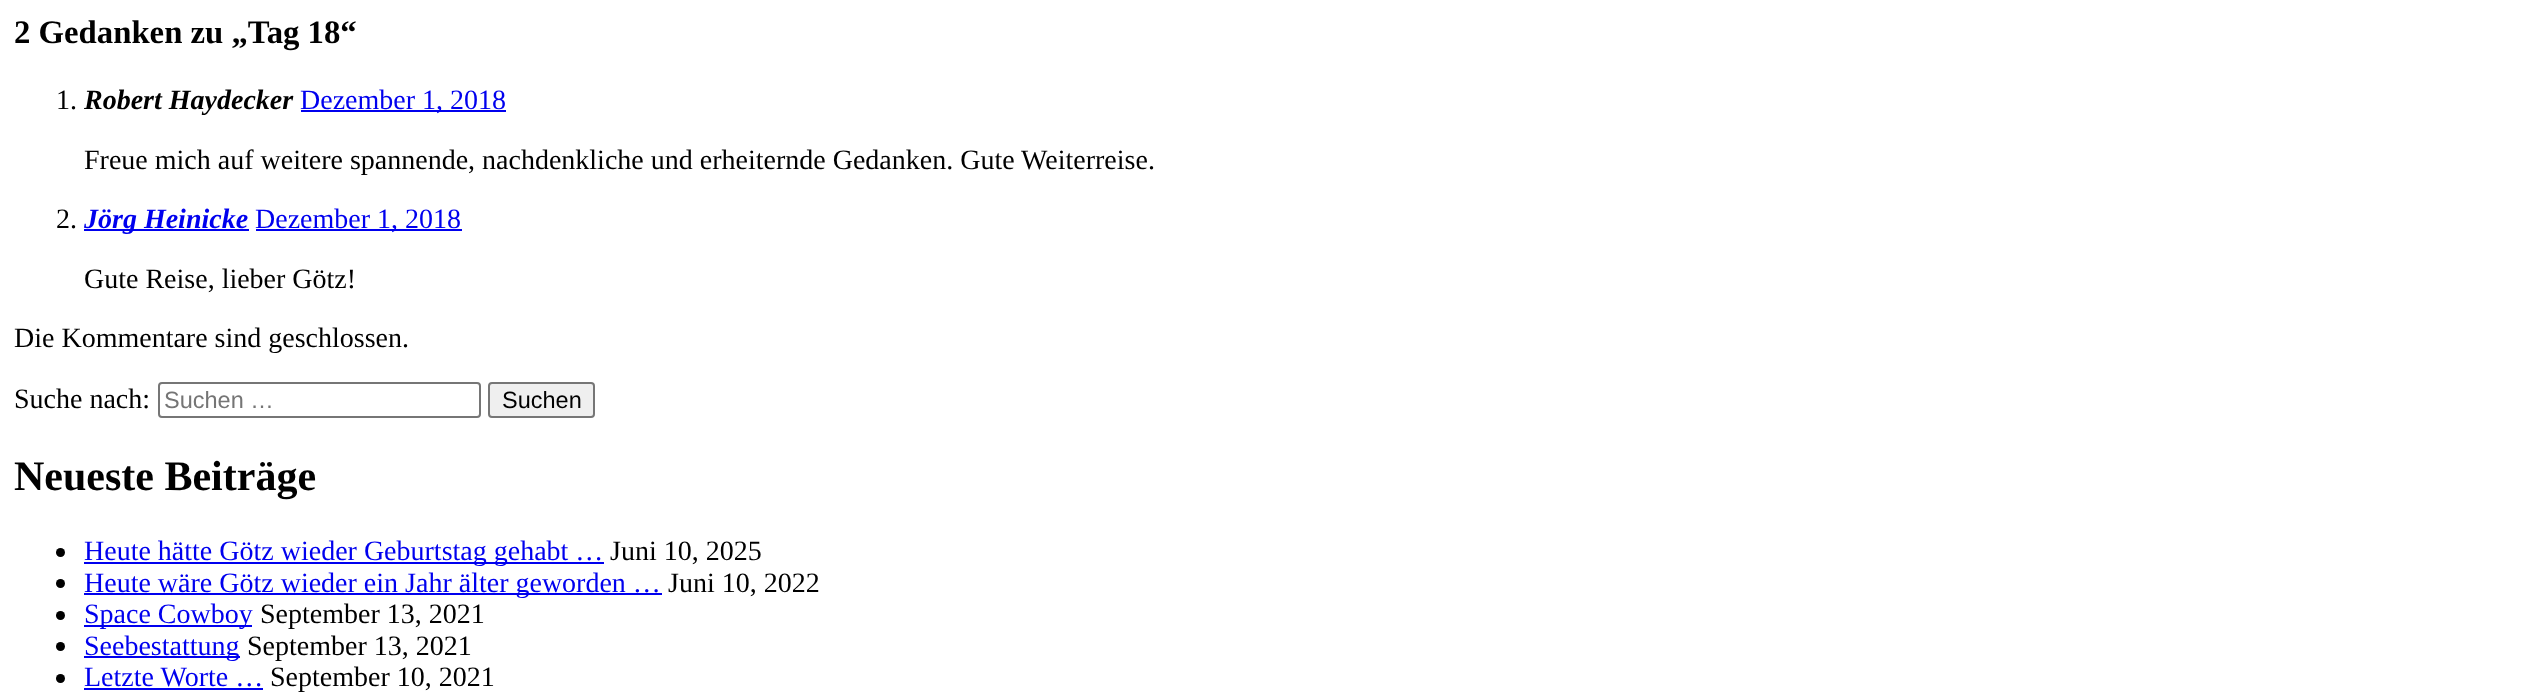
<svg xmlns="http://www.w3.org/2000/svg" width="2540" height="698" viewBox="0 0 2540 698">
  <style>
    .t1 { font: bold 32.75px Liberation Serif; fill: #000; }
    .t2 { font: 28px Liberation Serif; fill: #000; }
    .t3 { font: italic bold 28px Liberation Serif; fill: #000; }
    .t4 { font: 28px Liberation Serif; fill: #00e; }
    .t5 { font: italic bold 28px Liberation Serif; fill: #00e; }
    .t6 { font: 23.5px Liberation Sans; fill: #757575; }
    .t7 { font: 23.5px Liberation Sans; fill: #000; }
    .t8 { font: bold 42px Liberation Serif; fill: #000; }
  </style>
  <rect width="100%" height="100%" fill="#fff"/>
  <text x="14" y="43" class="t1">2 Gedanken zu „Tag 18“</text>
  <text x="56" y="109" class="t2">1.</text>
  <text x="84" y="109" class="t3">Robert Haydecker</text>
  <rect x="301" y="110" width="205" height="2" fill="#00e"/>
  <text x="300" y="109" class="t4">Dezember 1, 2018</text>
  <text x="84" y="169" class="t2">Freue mich auf weitere spannende, nachdenkliche und erheiternde Gedanken. Gute Weiterreise.</text>
  <text x="56" y="228" class="t2">2.</text>
  <rect x="84" y="229" width="165" height="2" fill="#00e"/>
  <text x="84" y="228" class="t5">Jörg Heinicke</text>
  <rect x="256" y="229" width="206" height="2" fill="#00e"/>
  <text x="255" y="228" class="t4">Dezember 1, 2018</text>
  <text x="84" y="288" class="t2">Gute Reise, lieber Götz!</text>
  <text x="14" y="347" class="t2">Die Kommentare sind geschlossen.</text>
  <text x="14" y="408" class="t2">Suche nach:</text>
  <rect x="159" y="383" width="321" height="34" rx="3" fill="none" stroke="#767676" stroke-width="2"/>
  <text x="164" y="408" class="t6">Suchen …</text>
  <rect x="489" y="383" width="105" height="34" rx="3" fill="#efefef" stroke="#767676" stroke-width="2"/>
  <text x="502" y="408" class="t7">Suchen</text>
  <text x="14" y="490" class="t8">Neueste Beiträge</text>
  <circle cx="60.5" cy="552.5" r="4.5" fill="#000"/>
  <rect x="84" y="562" width="520" height="2" fill="#00e"/>
  <text x="84" y="560" class="t4">Heute hätte Götz wieder Geburtstag gehabt …</text>
  <text x="610" y="560" class="t2">Juni 10, 2025</text>
  <circle cx="60.5" cy="583.5" r="4.5" fill="#000"/>
  <rect x="84" y="593" width="578" height="2" fill="#00e"/>
  <text x="84" y="592" class="t4">Heute wäre Götz wieder ein Jahr älter geworden …</text>
  <text x="668" y="592" class="t2">Juni 10, 2022</text>
  <circle cx="60.5" cy="615.5" r="4.5" fill="#000"/>
  <rect x="84" y="625" width="168" height="2" fill="#00e"/>
  <text x="84" y="623" class="t4">Space Cowboy</text>
  <text x="260" y="623" class="t2">September 13, 2021</text>
  <circle cx="60.5" cy="646.5" r="4.5" fill="#000"/>
  <rect x="84" y="656" width="156" height="2" fill="#00e"/>
  <text x="84" y="655" class="t4">Seebestattung</text>
  <text x="247" y="655" class="t2">September 13, 2021</text>
  <circle cx="60.5" cy="678.5" r="4.5" fill="#000"/>
  <text x="84" y="686" class="t4">Letzte Worte …</text>
  <rect x="84" y="688" width="179" height="2" fill="#00e"/>
  <text x="270" y="686" class="t2">September 10, 2021</text>
</svg>
